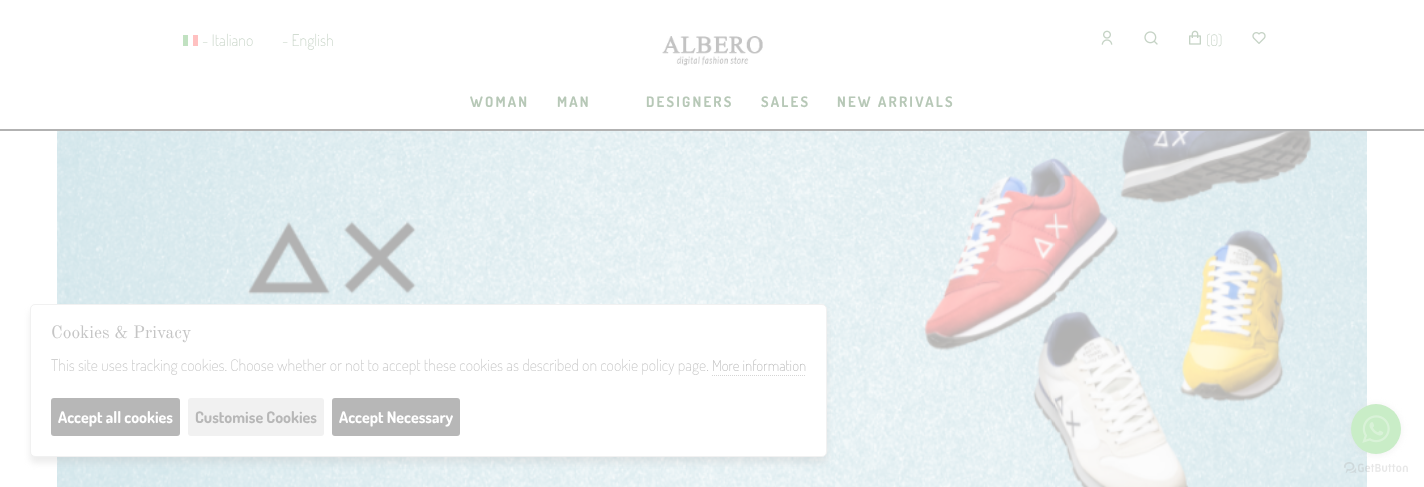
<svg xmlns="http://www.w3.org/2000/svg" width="1424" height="487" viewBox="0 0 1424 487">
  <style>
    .t1 { font: 200 16px Dosis; fill: #c6d3c6; }
    .t2 { font: bold 14.5px Dosis; letter-spacing: 2.2px; fill: #b7c8b7; }
    .t3 { font: 17.5px Old Standard TT; fill: #c5c5c5; }
    .t4 { font: 200 16px Dosis; fill: #c5c5c5; }
    .t5 { font: 200 15px Dosis; fill: #b7b7b7; }
    .t6 { font: bold 16px Dosis; fill: #fff; }
    .t7 { font: bold 16px Dosis; fill: #b7b7b7; }
  </style>
  <rect width="100%" height="100%" fill="#fff"/>
  <rect x="0" y="129" width="1424" height="2" fill="#b2b2b2"/>
  <image x="183" y="35" width="15" height="11" href="images/1.png"/>
  <text x="202" y="46" class="t1">- Italiano</text>
  <text x="282" y="46" class="t1">- English</text>
  <image x="662" y="36" width="101" height="30" href="images/2.png"/>
  <image x="1101" y="30" width="12" height="15" href="images/3.png"/>
  <image x="1144" y="31" width="14" height="14" href="images/4.png"/>
  <image x="1189" y="30" width="12" height="15" href="images/5.png"/>
  <text x="1206" y="46" class="t1">(0</text>
  <text x="1218" y="46" class="t1">)</text>
  <image x="1252" y="32" width="14" height="12" href="images/6.png"/>
  <text x="470" y="107" class="t2">WOMAN</text>
  <text x="557" y="107" class="t2">MAN</text>
  <text x="646" y="107" class="t2">DESIGNERS</text>
  <text x="761" y="107" class="t2">SALES</text>
  <text x="837" y="107" class="t2">NEW ARRIVALS</text>
  <image x="57" y="131" width="1310" height="356" href="images/7.png"/>
  <rect x="30" y="310" width="797" height="153" rx="5" fill="#b7b7b740" filter="blur(3px)"/>
  <rect x="30.5" y="304.5" width="796" height="152" rx="4.5" fill="#fff" stroke="#f1f1f1"/>
  <text x="51" y="338" class="t3">Cookies &amp; Privacy</text>
  <text x="51" y="371" class="t4">This site uses tracking cookies. Choose whether or not to accept these cookies as described on cookie policy page.</text>
  <text x="712" y="371" class="t5">More information</text>
  <path d="M712 375.5H806" fill="none" stroke="#d5d5d5" stroke-dasharray="1 1"/>
  <rect x="51" y="398" width="129" height="38" rx="3" fill="#b7b7b7"/>
  <text x="58" y="423" class="t6">Accept all cookies</text>
  <rect x="188" y="398" width="136" height="38" rx="3" fill="#f1f1f1"/>
  <text x="195" y="423" class="t7">Customise Cookies</text>
  <rect x="332" y="398" width="128" height="38" rx="3" fill="#b7b7b7"/>
  <text x="339" y="423" class="t6">Accept Necessary</text>
  <image x="1344" y="462" width="64" height="11" href="images/9.png"/>
  <rect x="1351" y="405" width="50" height="50" rx="25" fill="#dbdbdb66" filter="blur(3.5px)"/>
  <circle cx="1376" cy="429" r="25" fill="#c9edc7"/>
  <image x="1362" y="415" width="28" height="28" href="images/8.png"/>
</svg>
